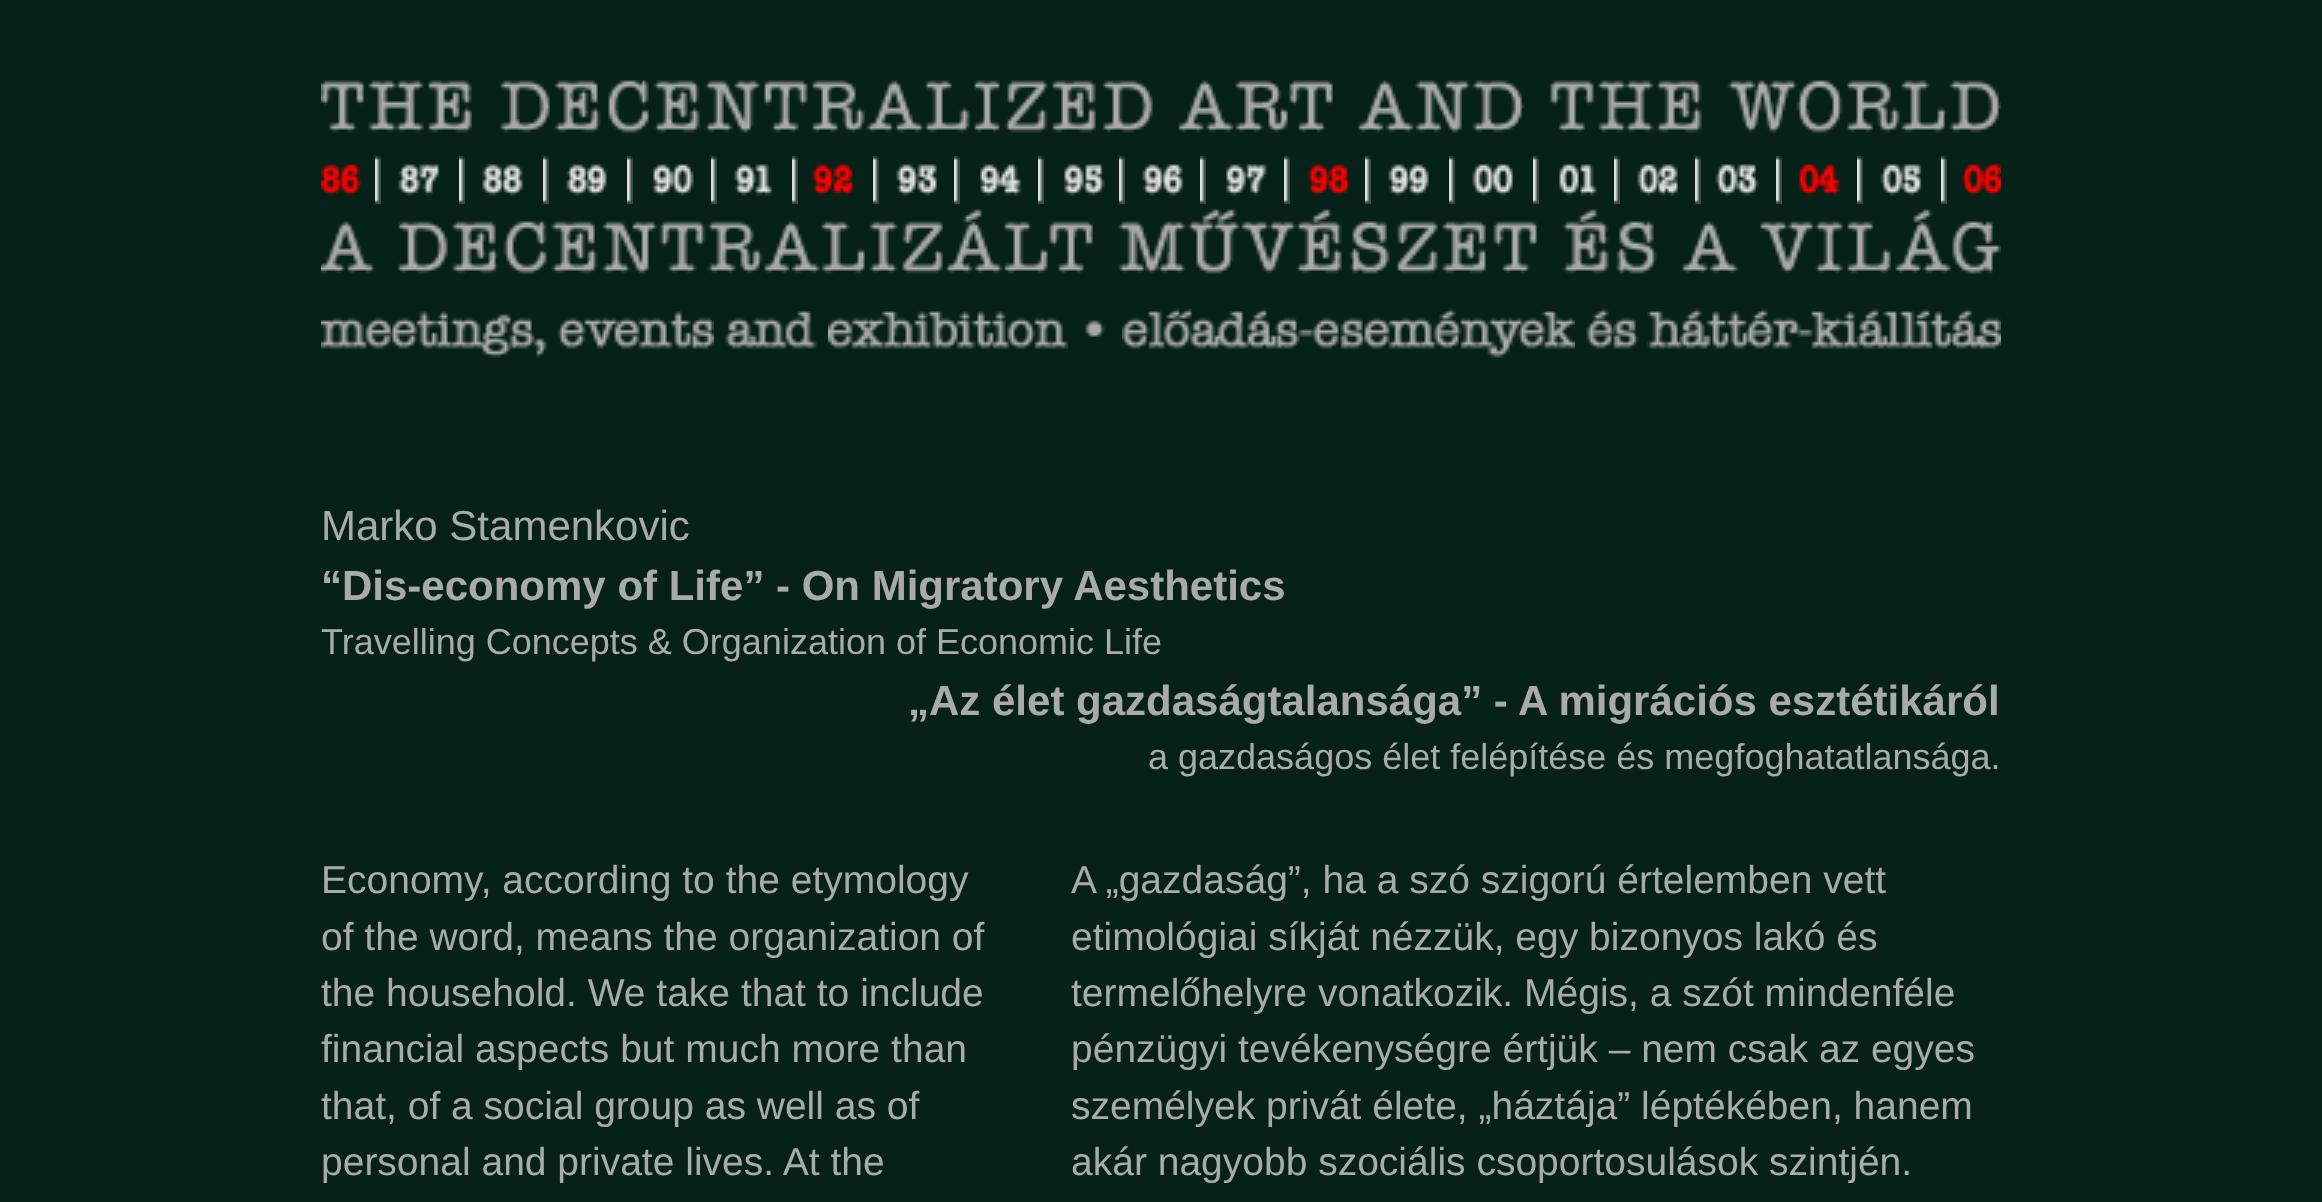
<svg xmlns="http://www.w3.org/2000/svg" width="2322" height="1202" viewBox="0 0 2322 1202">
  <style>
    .t1 { font: 42px Liberation Sans; fill: #aaa; }
    .t2 { font: bold 42px Liberation Sans; fill: #aaa; }
    .t3 { font: 36px Liberation Sans; fill: #aaa; }
    .t4 { font: 39px Liberation Sans; fill: #aaa; }
  </style>
  <rect width="100%" height="100%" fill="#062118"/>
  <image x="321" y="80" width="1680" height="53" href="images/1.png"/>
  <image x="321" y="164" width="41" height="32" href="images/2.png"/>
  <image x="375" y="156" width="6" height="48" href="images/3.png"/>
  <image x="398" y="164" width="42" height="32" href="images/4.png"/>
  <image x="459" y="156" width="6" height="48" href="images/3.png"/>
  <image x="482" y="164" width="41" height="32" href="images/5.png"/>
  <image x="543" y="156" width="6" height="48" href="images/6.png"/>
  <image x="566" y="164" width="41" height="32" href="images/7.png"/>
  <image x="627" y="156" width="6" height="48" href="images/6.png"/>
  <image x="653" y="164" width="41" height="32" href="images/8.png"/>
  <image x="711" y="156" width="6" height="48" href="images/3.png"/>
  <image x="734" y="164" width="38" height="32" href="images/9.png"/>
  <image x="792" y="156" width="6" height="48" href="images/6.png"/>
  <image x="812" y="164" width="41" height="32" href="images/10.png"/>
  <image x="873" y="156" width="6" height="48" href="images/6.png"/>
  <image x="896" y="164" width="41" height="32" href="images/11.png"/>
  <image x="954" y="156" width="6" height="48" href="images/6.png"/>
  <image x="980" y="164" width="41" height="32" href="images/12.png"/>
  <image x="1038" y="156" width="6" height="48" href="images/3.png"/>
  <image x="1064" y="164" width="41" height="32" href="images/13.png"/>
  <image x="1119" y="156" width="6" height="48" href="images/3.png"/>
  <image x="1142" y="164" width="42" height="32" href="images/14.png"/>
  <image x="1200" y="156" width="6" height="48" href="images/3.png"/>
  <image x="1226" y="164" width="42" height="32" href="images/15.png"/>
  <image x="1284" y="156" width="6" height="48" href="images/3.png"/>
  <image x="1307" y="164" width="44" height="32" href="images/16.png"/>
  <image x="1365" y="156" width="6" height="48" href="images/3.png"/>
  <image x="1388" y="164" width="41" height="32" href="images/17.png"/>
  <image x="1449" y="156" width="6" height="48" href="images/6.png"/>
  <image x="1472" y="164" width="41" height="32" href="images/18.png"/>
  <image x="1533" y="156" width="6" height="48" href="images/6.png"/>
  <image x="1559" y="164" width="38" height="32" href="images/19.png"/>
  <image x="1614" y="156" width="6" height="48" href="images/6.png"/>
  <image x="1637" y="164" width="41" height="32" href="images/20.png"/>
  <image x="1695" y="156" width="6" height="48" href="images/6.png"/>
  <image x="1715" y="164" width="44" height="32" href="images/21.png"/>
  <image x="1776" y="156" width="6" height="48" href="images/6.png"/>
  <image x="1799" y="164" width="41" height="32" href="images/22.png"/>
  <image x="1857" y="156" width="6" height="48" href="images/3.png"/>
  <image x="1880" y="164" width="42" height="32" href="images/23.png"/>
  <image x="1941" y="156" width="6" height="48" href="images/3.png"/>
  <image x="1961" y="164" width="40" height="32" href="images/24.png"/>
  <image x="321" y="209" width="1680" height="65" href="images/25.png"/>
  <image x="321" y="311" width="393" height="47" href="images/26.png"/>
  <image x="725" y="311" width="92" height="38" href="images/27.png"/>
  <image x="828" y="311" width="240" height="38" href="images/28.png"/>
  <image x="1085" y="320" width="20" height="17" href="images/29.png"/>
  <image x="1122" y="308" width="453" height="50" href="images/30.png"/>
  <image x="1586" y="308" width="53" height="41" href="images/31.png"/>
  <image x="1647" y="308" width="354" height="41" href="images/32.png"/>
  <text x="321" y="540" class="t1">Marko Stamenkovic</text>
  <text x="321" y="600" class="t2">“Dis-economy of Life” - On Migratory Aesthetics</text>
  <text x="321" y="654" class="t3">Travelling Concepts &amp; Organization of Economic Life</text>
  <text x="908" y="715" class="t2">„Az élet gazdaságtalansága” - A migrációs esztétikáról</text>
  <text x="1148" y="769" class="t3">a gazdaságos élet felépítése és megfoghatatlansága.</text>
  <text x="321" y="893" class="t4">Economy, according to the etymology</text>
  <text x="321" y="950" class="t4">of the word, means the organization of</text>
  <text x="321" y="1006" class="t4">the household. We take that to include</text>
  <text x="321" y="1062" class="t4">financial aspects but much more than</text>
  <text x="321" y="1119" class="t4">that, of a social group as well as of</text>
  <text x="321" y="1175" class="t4">personal and private lives. At the</text>
  <text x="1071" y="893" class="t4">A „gazdaság”, ha a szó szigorú értelemben vett</text>
  <text x="1071" y="950" class="t4">etimológiai síkját nézzük, egy bizonyos lakó és</text>
  <text x="1071" y="1006" class="t4">termelőhelyre vonatkozik. Mégis, a szót mindenféle</text>
  <text x="1071" y="1062" class="t4">pénzügyi tevékenységre értjük – nem csak az egyes</text>
  <text x="1071" y="1119" class="t4">személyek privát élete, „háztája” léptékében, hanem</text>
  <text x="1071" y="1175" class="t4">akár nagyobb szociális csoportosulások szintjén.</text>
</svg>
